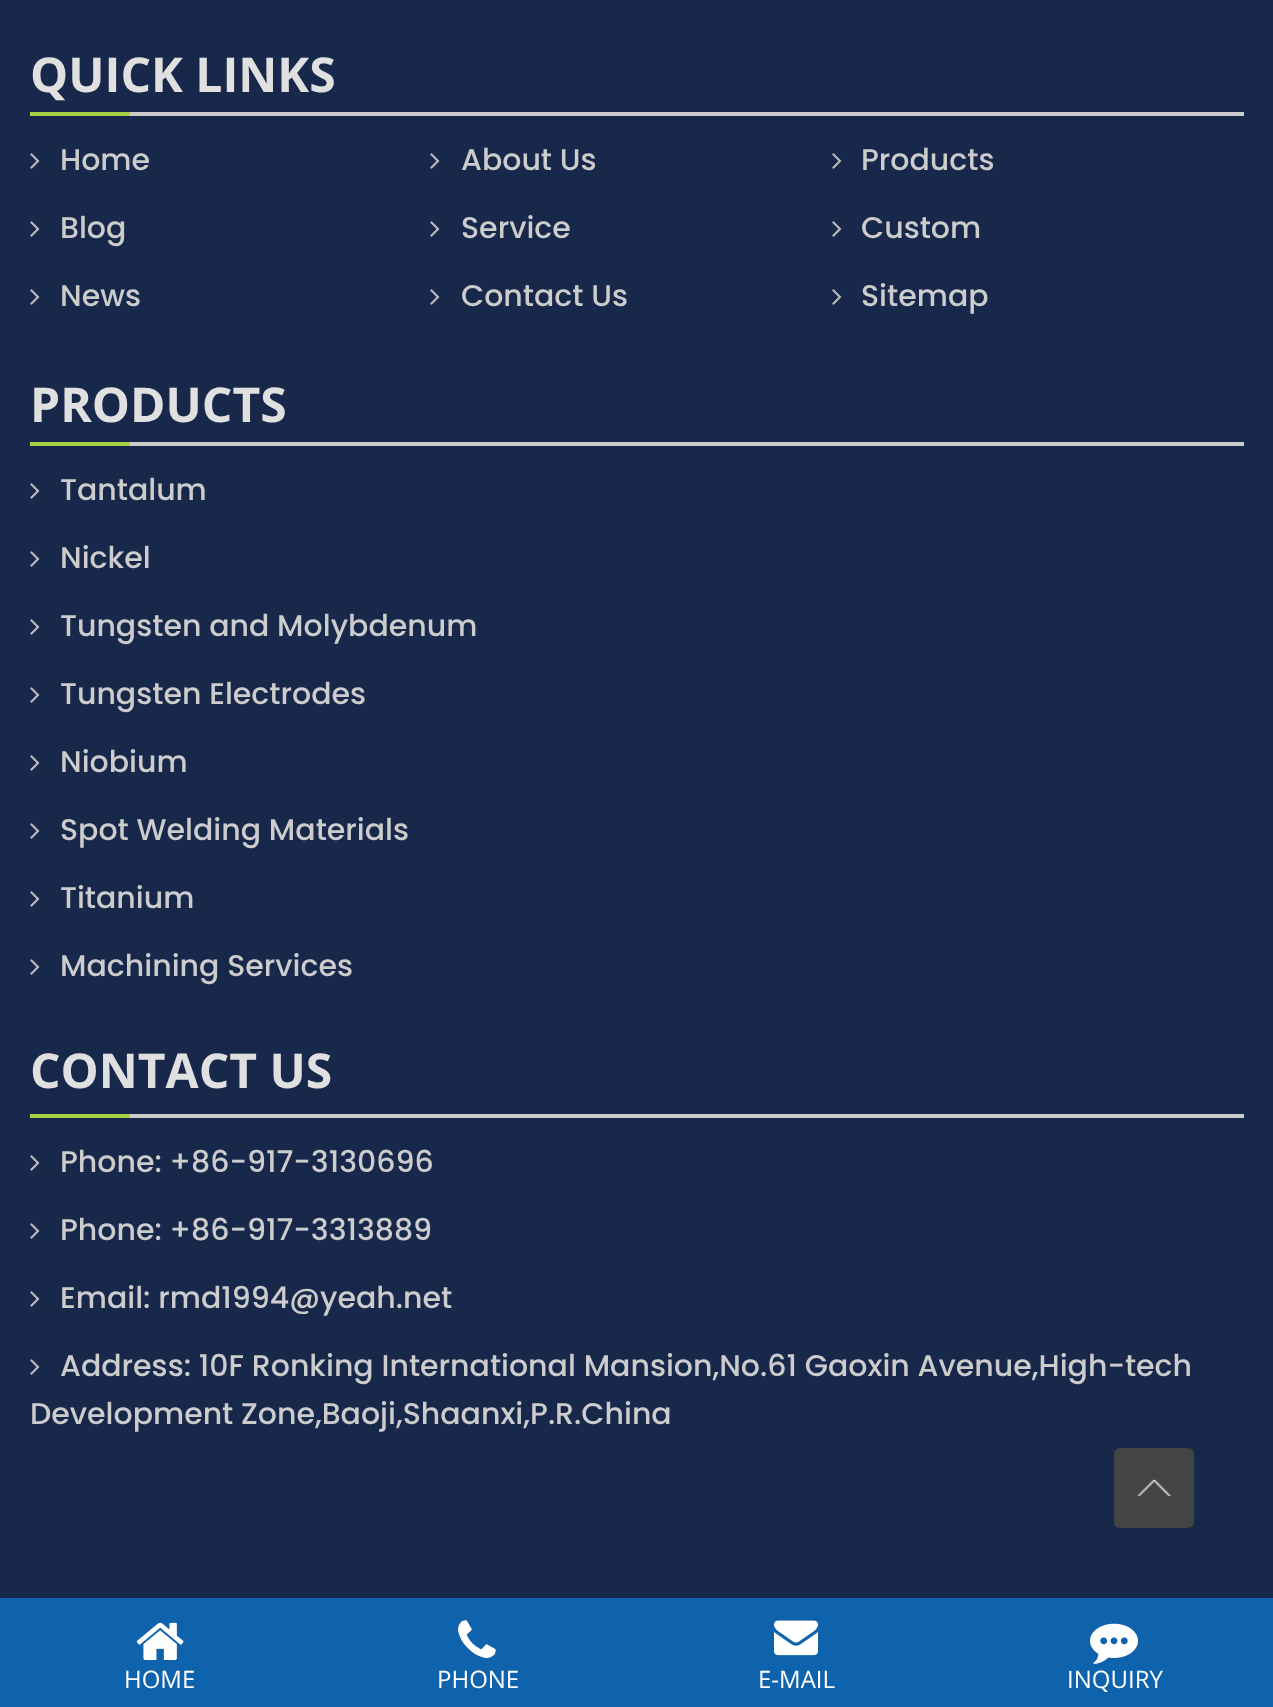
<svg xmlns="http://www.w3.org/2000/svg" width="1273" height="1707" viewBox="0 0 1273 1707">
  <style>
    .t1 { font: bold 48px Open Sans; fill: #e0e0e0; }
    .t2 { font: 500 30px Poppins; fill: #ccc; }
    .t3 { font: 24px Open Sans; fill: #fff; }
  </style>
  <rect width="100%" height="100%" fill="#18284a"/>
  <rect x="130" y="112" width="1114" height="4" fill="#ccc"/>
  <text x="30" y="92" class="t1">QUICK LINKS</text>
  <rect x="30" y="112" width="100" height="4" fill="#a7d044"/>
  <image x="30" y="153" width="10" height="16" href="images/1.png"/>
  <text x="60" y="170" class="t2">Home</text>
  <image x="430" y="153" width="10" height="16" href="images/1.png"/>
  <text x="461" y="170" class="t2">About Us</text>
  <image x="832" y="153" width="10" height="16" href="images/1.png"/>
  <text x="861" y="170" class="t2">Products</text>
  <image x="30" y="221" width="10" height="16" href="images/1.png"/>
  <text x="60" y="238" class="t2">Blog</text>
  <image x="430" y="221" width="10" height="16" href="images/1.png"/>
  <text x="461" y="238" class="t2">Service</text>
  <image x="832" y="221" width="10" height="16" href="images/1.png"/>
  <text x="861" y="238" class="t2">Custom</text>
  <image x="30" y="289" width="10" height="16" href="images/1.png"/>
  <text x="60" y="306" class="t2">News</text>
  <image x="430" y="289" width="10" height="16" href="images/1.png"/>
  <text x="461" y="306" class="t2">Contact Us</text>
  <image x="832" y="289" width="10" height="16" href="images/1.png"/>
  <text x="861" y="306" class="t2">Sitemap</text>
  <rect x="130" y="442" width="1114" height="4" fill="#ccc"/>
  <text x="30" y="422" class="t1">PRODUCTS</text>
  <rect x="30" y="442" width="100" height="4" fill="#a7d044"/>
  <image x="30" y="483" width="10" height="16" href="images/1.png"/>
  <text x="60" y="500" class="t2">Tantalum</text>
  <image x="30" y="551" width="10" height="16" href="images/1.png"/>
  <text x="60" y="568" class="t2">Nickel</text>
  <image x="30" y="619" width="10" height="16" href="images/1.png"/>
  <text x="60" y="636" class="t2">Tungsten and Molybdenum</text>
  <image x="30" y="687" width="10" height="16" href="images/1.png"/>
  <text x="60" y="704" class="t2">Tungsten Electrodes</text>
  <image x="30" y="755" width="10" height="16" href="images/1.png"/>
  <text x="60" y="772" class="t2">Niobium</text>
  <image x="30" y="823" width="10" height="16" href="images/1.png"/>
  <text x="60" y="840" class="t2">Spot Welding Materials</text>
  <image x="30" y="891" width="10" height="16" href="images/1.png"/>
  <text x="60" y="908" class="t2">Titanium</text>
  <image x="30" y="959" width="10" height="16" href="images/1.png"/>
  <text x="60" y="976" class="t2">Machining Services</text>
  <rect x="130" y="1114" width="1114" height="4" fill="#ccc"/>
  <text x="30" y="1088" class="t1">CONTACT US</text>
  <rect x="30" y="1114" width="100" height="4" fill="#a7d044"/>
  <image x="30" y="1155" width="10" height="16" href="images/1.png"/>
  <text x="60" y="1172" class="t2">Phone: +86-917-3130696</text>
  <image x="30" y="1223" width="10" height="16" href="images/1.png"/>
  <text x="60" y="1240" class="t2">Phone: +86-917-3313889</text>
  <image x="30" y="1291" width="10" height="16" href="images/1.png"/>
  <text x="60" y="1308" class="t2">Email: rmd1994@yeah.net</text>
  <image x="30" y="1359" width="10" height="16" href="images/1.png"/>
  <text x="60" y="1376" class="t2">Address: 10F Ronking International Mansion,No.61 Gaoxin Avenue,High-tech</text>
  <text x="30" y="1424" class="t2">Development Zone,Baoji,Shaanxi,P.R.China</text>
  <rect x="0" y="1598" width="1273" height="109" fill="#0f62ac"/>
  <image x="136" y="1622" width="48" height="38" href="images/2.png"/>
  <text x="124" y="1688" class="t3">HOME</text>
  <image x="458" y="1620" width="38" height="38" href="images/3.png"/>
  <text x="437" y="1688" class="t3">PHONE</text>
  <image x="774" y="1620" width="44" height="36" href="images/4.png"/>
  <text x="758" y="1688" class="t3">E-MAIL</text>
  <image x="1090" y="1623" width="48" height="41" href="images/5.png"/>
  <text x="1067" y="1688" class="t3">INQUIRY</text>
  <rect x="1114" y="1448" width="80" height="80" rx="6" fill="#434444"/>
  <image x="1137" y="1479" width="35" height="18" href="images/6.png"/>
</svg>
